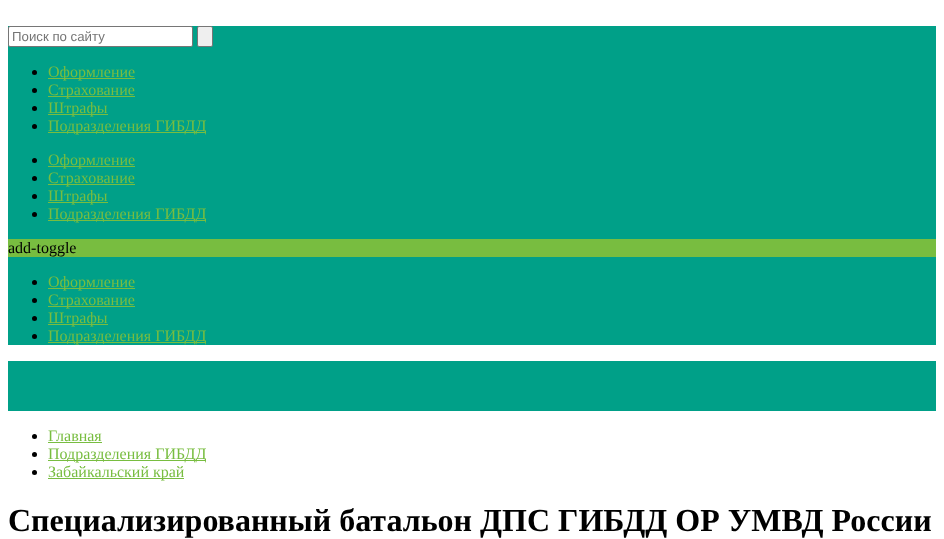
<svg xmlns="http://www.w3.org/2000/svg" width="944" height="539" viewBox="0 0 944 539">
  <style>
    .t1 { font: 13.25px Liberation Sans; fill: #757575; }
    .t2 { font: 16px Liberation Serif; fill: #78bd40; }
    .t3 { font: 16px Liberation Serif; fill: #000; }
    .t4 { font: bold 32px Liberation Serif; fill: #000; }
  </style>
  <rect width="100%" height="100%" fill="#fff"/>
  <rect x="8" y="26" width="928" height="319" fill="#00a088"/>
  <rect x="8.5" y="26.5" width="184" height="20" rx="1.5" fill="#fff" stroke="#767676"/>
  <text x="12" y="41" class="t1">Поиск по сайту</text>
  <rect x="197.5" y="26.5" width="15" height="20" rx="1.5" fill="#efefef" stroke="#767676"/>
  <circle cx="34.5" cy="72.5" r="2.5" fill="#000"/>
  <rect x="48" y="78" width="87" height="1" fill="#78bd40"/>
  <text x="48" y="77" class="t2">Оформление</text>
  <circle cx="34.5" cy="90.5" r="2.5" fill="#000"/>
  <rect x="48" y="96" width="87" height="1" fill="#78bd40"/>
  <text x="48" y="95" class="t2">Страхование</text>
  <circle cx="34.5" cy="108.5" r="2.5" fill="#000"/>
  <rect x="48" y="114" width="60" height="1" fill="#78bd40"/>
  <text x="48" y="113" class="t2">Штрафы</text>
  <circle cx="34.5" cy="126.5" r="2.5" fill="#000"/>
  <rect x="48" y="132" width="158" height="1" fill="#78bd40"/>
  <text x="48" y="131" class="t2">Подразделения ГИБДД</text>
  <circle cx="34.5" cy="160.5" r="2.5" fill="#000"/>
  <rect x="48" y="166" width="87" height="1" fill="#78bd40"/>
  <text x="48" y="165" class="t2">Оформление</text>
  <circle cx="34.5" cy="178.5" r="2.5" fill="#000"/>
  <rect x="48" y="184" width="87" height="1" fill="#78bd40"/>
  <text x="48" y="183" class="t2">Страхование</text>
  <circle cx="34.5" cy="196.5" r="2.5" fill="#000"/>
  <rect x="48" y="202" width="60" height="1" fill="#78bd40"/>
  <text x="48" y="201" class="t2">Штрафы</text>
  <circle cx="34.5" cy="214.5" r="2.5" fill="#000"/>
  <rect x="48" y="220" width="158" height="1" fill="#78bd40"/>
  <text x="48" y="219" class="t2">Подразделения ГИБДД</text>
  <rect x="8" y="239" width="928" height="18" fill="#78bd40"/>
  <text x="8" y="253" class="t3">add-toggle</text>
  <circle cx="34.5" cy="282.5" r="2.5" fill="#000"/>
  <rect x="48" y="288" width="87" height="1" fill="#78bd40"/>
  <text x="48" y="287" class="t2">Оформление</text>
  <circle cx="34.5" cy="300.5" r="2.5" fill="#000"/>
  <rect x="48" y="306" width="87" height="1" fill="#78bd40"/>
  <text x="48" y="305" class="t2">Страхование</text>
  <circle cx="34.5" cy="318.5" r="2.5" fill="#000"/>
  <rect x="48" y="324" width="60" height="1" fill="#78bd40"/>
  <text x="48" y="323" class="t2">Штрафы</text>
  <circle cx="34.5" cy="336.5" r="2.5" fill="#000"/>
  <rect x="48" y="342" width="158" height="1" fill="#78bd40"/>
  <text x="48" y="341" class="t2">Подразделения ГИБДД</text>
  <rect x="8" y="361" width="928" height="50" fill="#00a088"/>
  <circle cx="34.5" cy="436.5" r="2.5" fill="#000"/>
  <text x="48" y="441" class="t2">Главная</text>
  <rect x="48" y="442" width="54" height="1" fill="#78bd40"/>
  <circle cx="34.5" cy="454.5" r="2.5" fill="#000"/>
  <rect x="48" y="460" width="158" height="1" fill="#78bd40"/>
  <text x="48" y="459" class="t2">Подразделения ГИБДД</text>
  <circle cx="34.5" cy="472.5" r="2.5" fill="#000"/>
  <rect x="48" y="478" width="136" height="1" fill="#78bd40"/>
  <text x="48" y="477" class="t2">Забайкальский край</text>
  <text x="8" y="531" class="t4">Специализированный батальон ДПС ГИБДД ОР УМВД России</text>
</svg>
